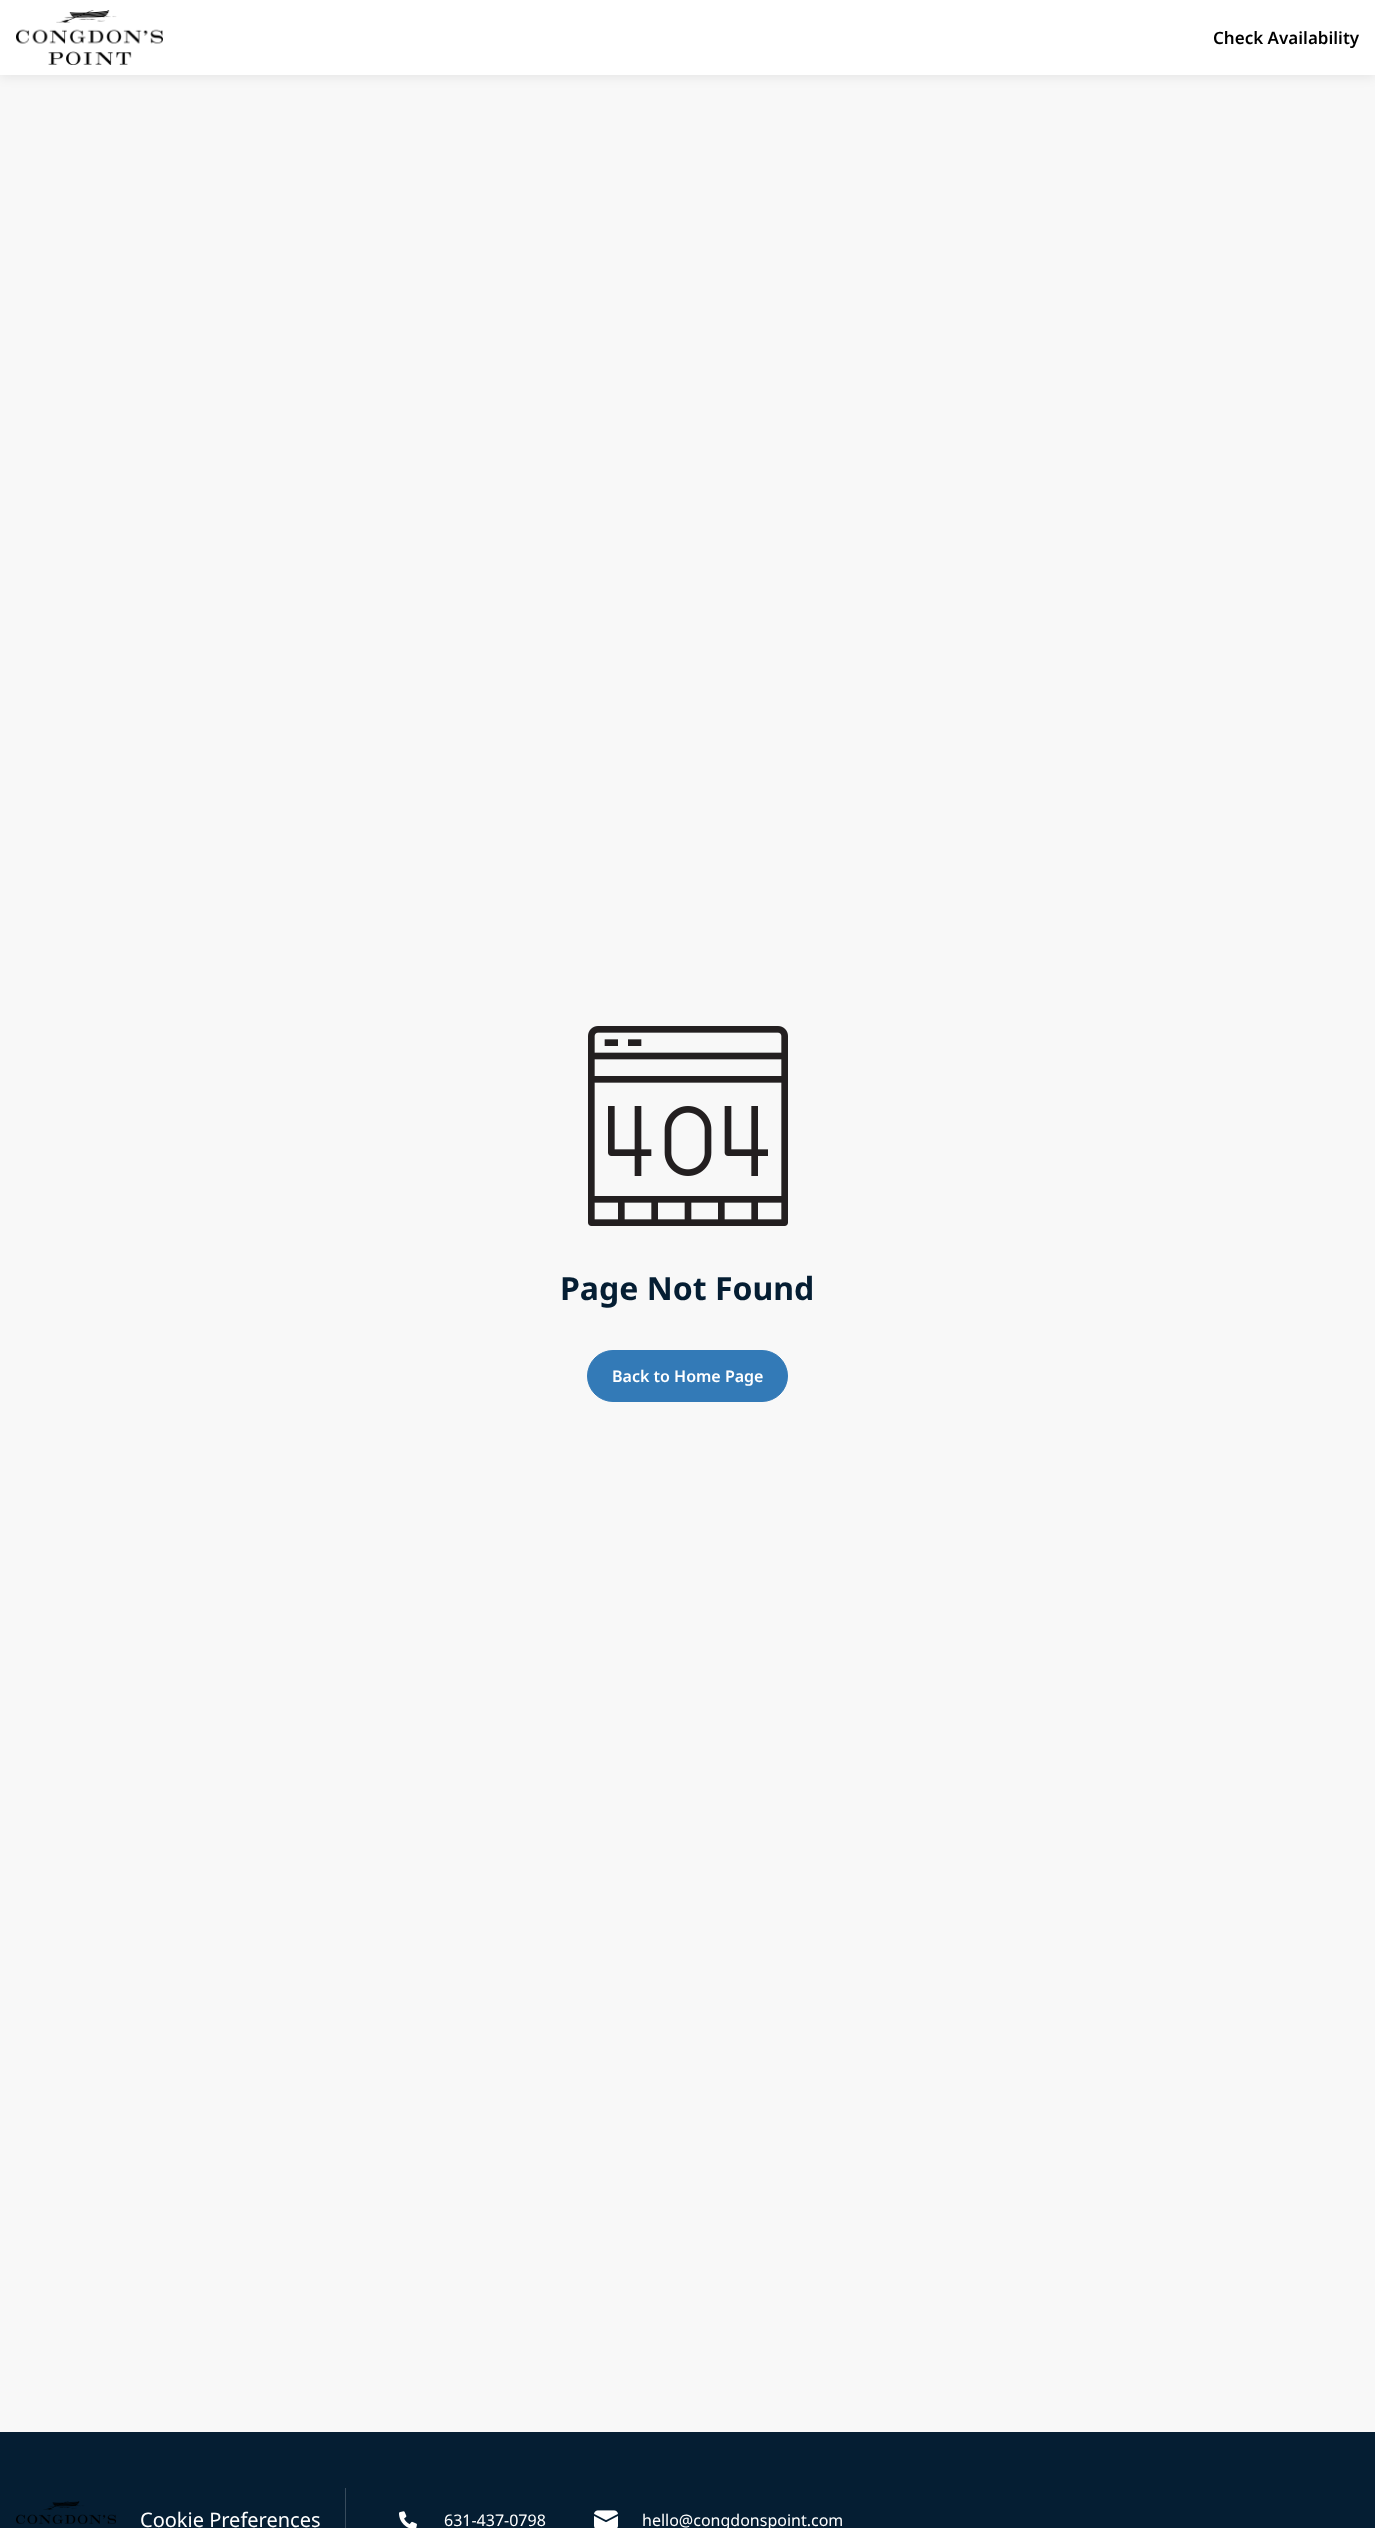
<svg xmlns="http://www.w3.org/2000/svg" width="1375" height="2528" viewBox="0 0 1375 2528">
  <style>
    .t1 { font: 600 17px Noto Sans; fill: #000; }
    .t2 { font: bold 32px Noto Sans; fill: #051e33; }
    .t3 { font: 600 16px Noto Sans; fill: #fff; }
    .t4 { font: 20px Noto Sans; fill: #fff; }
    .t5 { font: 16px Noto Sans; fill: #fff; }
  </style>
  <rect width="100%" height="100%" fill="#f8f8f8"/>
  <rect x="0" y="2" width="1375" height="75" fill="#00000014" filter="blur(6px)"/>
  <rect x="0" y="0" width="1375" height="75" fill="#fff"/>
  <image x="16" y="10" width="147" height="55" href="images/1.png"/>
  <text x="1213" y="44" class="t1">Check Availability</text>
  <image x="588" y="1026" width="200" height="200" href="images/2.png"/>
  <text x="560" y="1300" class="t2">Page Not Found</text>
  <rect x="587.5" y="1350.5" width="200" height="51" rx="25.5" fill="#337ab7" stroke="#337ab7"/>
  <text x="612" y="1382" class="t3">Back to Home Page</text>
  <rect x="0" y="2432" width="1375" height="96" fill="#051e33"/>
  <image x="16" y="2501" width="100" height="23" href="images/3.png"/>
  <text x="140" y="2527" class="t4">Cookie Preferences</text>
  <rect x="345" y="2488" width="1" height="40" fill="#374b5c"/>
  <image x="399" y="2511" width="18" height="17" href="images/4.png"/>
  <text x="444" y="2526" class="t5">631-437-0798</text>
  <image x="594" y="2510" width="24" height="18" href="images/5.png"/>
  <text x="642" y="2526" class="t5">hello@congdonspoint.com</text>
</svg>
